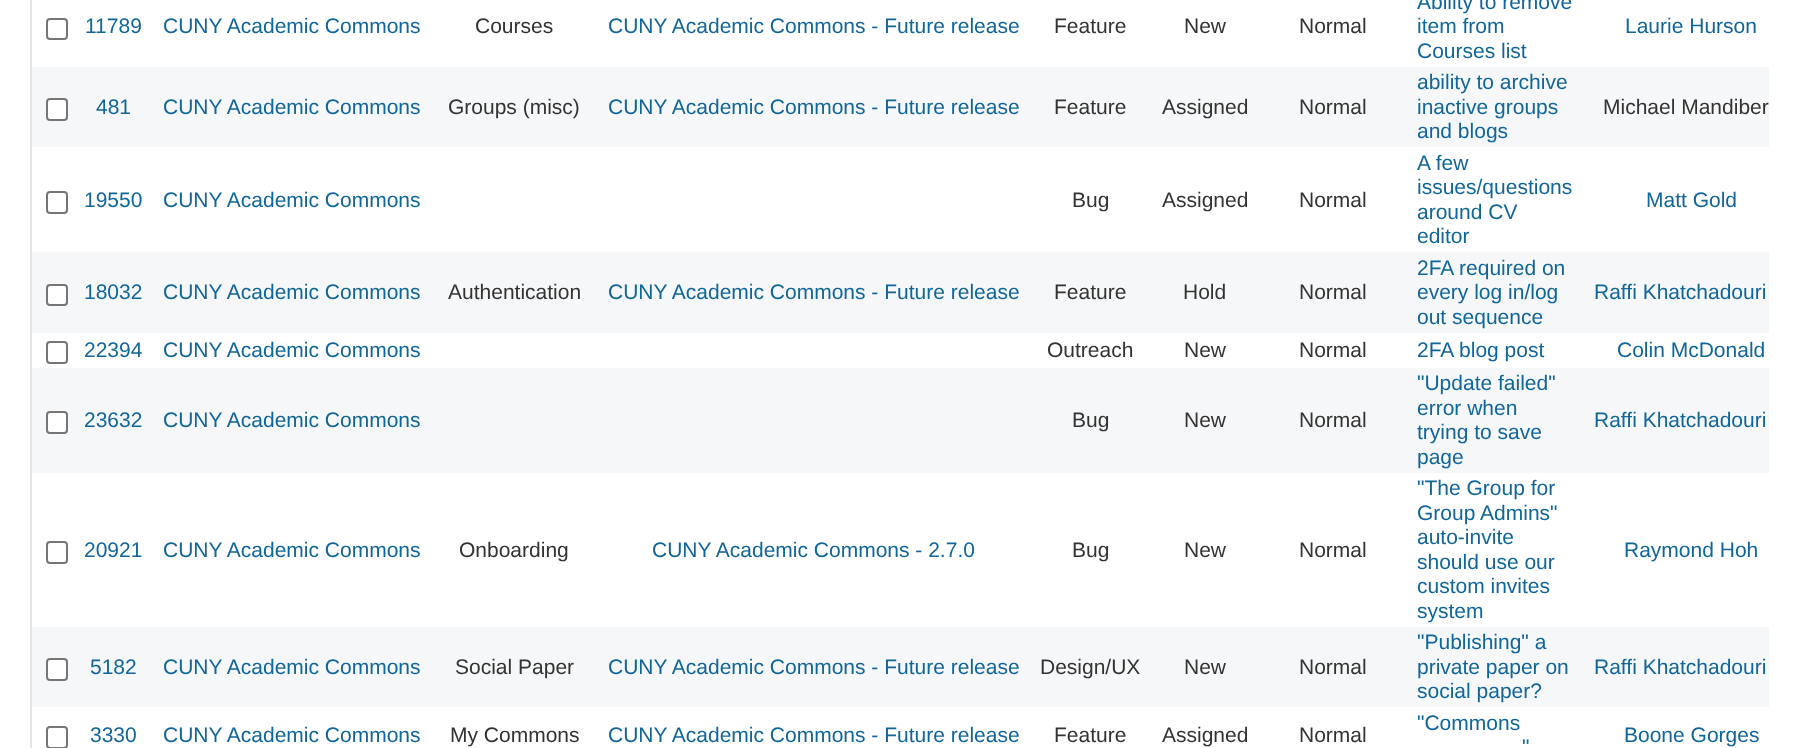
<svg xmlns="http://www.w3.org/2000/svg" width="1796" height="748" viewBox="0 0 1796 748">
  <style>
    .t1 { font: 21px Liberation Sans; fill: #169; }
    .t2 { font: 21px Liberation Sans; fill: #333; }
  </style>
  <rect width="100%" height="100%" fill="#fff"/>
  <rect x="31" y="-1" width="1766" height="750" fill="none" stroke="#e4e4e4" stroke-width="2"/>
  <rect x="47" y="19" width="20" height="20" rx="3" fill="none" stroke="#767676" stroke-width="2"/>
  <text x="85" y="33" class="t1">11789</text>
  <text x="163" y="33" class="t1">CUNY Academic Commons</text>
  <text x="475" y="33" class="t2">Courses</text>
  <text x="608" y="33" class="t1">CUNY Academic Commons - Future release</text>
  <text x="1054" y="33" class="t2">Feature</text>
  <text x="1184" y="33" class="t2">New</text>
  <text x="1299" y="33" class="t2">Normal</text>
  <text x="1417" y="9" class="t1">Ability to remove</text>
  <text x="1417" y="33" class="t1">item from</text>
  <text x="1417" y="58" class="t1">Courses list</text>
  <text x="1625" y="33" class="t1">Laurie Hurson</text>
  <rect x="32" y="67" width="1737" height="80" fill="#f6f7f8"/>
  <rect x="47" y="99" width="20" height="21" rx="3" fill="#fff" stroke="#767676" stroke-width="2"/>
  <text x="96" y="114" class="t1">481</text>
  <text x="163" y="114" class="t1">CUNY Academic Commons</text>
  <text x="448" y="114" class="t2">Groups (misc)</text>
  <text x="608" y="114" class="t1">CUNY Academic Commons - Future release</text>
  <text x="1054" y="114" class="t2">Feature</text>
  <text x="1162" y="114" class="t2">Assigned</text>
  <text x="1299" y="114" class="t2">Normal</text>
  <text x="1417" y="89" class="t1">ability to archive</text>
  <text x="1417" y="114" class="t1">inactive groups</text>
  <text x="1417" y="138" class="t1">and blogs</text>
  <text x="1603" y="114" class="t2">Michael Mandiber</text>
  <rect x="47" y="192" width="20" height="21" rx="3" fill="none" stroke="#767676" stroke-width="2"/>
  <text x="84" y="207" class="t1">19550</text>
  <text x="163" y="207" class="t1">CUNY Academic Commons</text>
  <text x="1072" y="207" class="t2">Bug</text>
  <text x="1162" y="207" class="t2">Assigned</text>
  <text x="1299" y="207" class="t2">Normal</text>
  <text x="1417" y="170" class="t1">A few</text>
  <text x="1417" y="194" class="t1">issues/questions</text>
  <text x="1417" y="219" class="t1">around CV</text>
  <text x="1417" y="243" class="t1">editor</text>
  <text x="1646" y="207" class="t1">Matt Gold</text>
  <rect x="32" y="252" width="1737" height="81" fill="#f6f7f8"/>
  <rect x="47" y="285" width="20" height="20" rx="3" fill="#fff" stroke="#767676" stroke-width="2"/>
  <text x="84" y="299" class="t1">18032</text>
  <text x="163" y="299" class="t1">CUNY Academic Commons</text>
  <text x="448" y="299" class="t2">Authentication</text>
  <text x="608" y="299" class="t1">CUNY Academic Commons - Future release</text>
  <text x="1054" y="299" class="t2">Feature</text>
  <text x="1183" y="299" class="t2">Hold</text>
  <text x="1299" y="299" class="t2">Normal</text>
  <text x="1417" y="275" class="t1">2FA required on</text>
  <text x="1417" y="299" class="t1">every log in/log</text>
  <text x="1417" y="324" class="t1">out sequence</text>
  <text x="1594" y="299" class="t1">Raffi Khatchadouri</text>
  <rect x="47" y="342" width="20" height="21" rx="3" fill="none" stroke="#767676" stroke-width="2"/>
  <text x="84" y="357" class="t1">22394</text>
  <text x="163" y="357" class="t1">CUNY Academic Commons</text>
  <text x="1047" y="357" class="t2">Outreach</text>
  <text x="1184" y="357" class="t2">New</text>
  <text x="1299" y="357" class="t2">Normal</text>
  <text x="1417" y="357" class="t1">2FA blog post</text>
  <text x="1617" y="357" class="t1">Colin McDonald</text>
  <rect x="32" y="368" width="1737" height="105" fill="#f6f7f8"/>
  <rect x="47" y="412" width="20" height="21" rx="3" fill="#fff" stroke="#767676" stroke-width="2"/>
  <text x="84" y="427" class="t1">23632</text>
  <text x="163" y="427" class="t1">CUNY Academic Commons</text>
  <text x="1072" y="427" class="t2">Bug</text>
  <text x="1184" y="427" class="t2">New</text>
  <text x="1299" y="427" class="t2">Normal</text>
  <text x="1417" y="390" class="t1">"Update failed"</text>
  <text x="1417" y="415" class="t1">error when</text>
  <text x="1417" y="439" class="t1">trying to save</text>
  <text x="1417" y="464" class="t1">page</text>
  <text x="1594" y="427" class="t1">Raffi Khatchadouri</text>
  <rect x="47" y="542" width="20" height="21" rx="3" fill="none" stroke="#767676" stroke-width="2"/>
  <text x="84" y="557" class="t1">20921</text>
  <text x="163" y="557" class="t1">CUNY Academic Commons</text>
  <text x="459" y="557" class="t2">Onboarding</text>
  <text x="652" y="557" class="t1">CUNY Academic Commons - 2.7.0</text>
  <text x="1072" y="557" class="t2">Bug</text>
  <text x="1184" y="557" class="t2">New</text>
  <text x="1299" y="557" class="t2">Normal</text>
  <text x="1417" y="495" class="t1">"The Group for</text>
  <text x="1417" y="520" class="t1">Group Admins"</text>
  <text x="1417" y="544" class="t1">auto-invite</text>
  <text x="1417" y="569" class="t1">should use our</text>
  <text x="1417" y="593" class="t1">custom invites</text>
  <text x="1417" y="618" class="t1">system</text>
  <text x="1624" y="557" class="t1">Raymond Hoh</text>
  <rect x="32" y="627" width="1737" height="80" fill="#f6f7f8"/>
  <rect x="47" y="659" width="20" height="21" rx="3" fill="#fff" stroke="#767676" stroke-width="2"/>
  <text x="90" y="674" class="t1">5182</text>
  <text x="163" y="674" class="t1">CUNY Academic Commons</text>
  <text x="455" y="674" class="t2">Social Paper</text>
  <text x="608" y="674" class="t1">CUNY Academic Commons - Future release</text>
  <text x="1040" y="674" class="t2">Design/UX</text>
  <text x="1184" y="674" class="t2">New</text>
  <text x="1299" y="674" class="t2">Normal</text>
  <text x="1417" y="649" class="t1">"Publishing" a</text>
  <text x="1417" y="674" class="t1">private paper on</text>
  <text x="1417" y="698" class="t1">social paper?</text>
  <text x="1594" y="674" class="t1">Raffi Khatchadouri</text>
  <rect x="47" y="727" width="20" height="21" rx="3" fill="none" stroke="#767676" stroke-width="2"/>
  <text x="90" y="742" class="t1">3330</text>
  <text x="163" y="742" class="t1">CUNY Academic Commons</text>
  <text x="450" y="742" class="t2">My Commons</text>
  <text x="608" y="742" class="t1">CUNY Academic Commons - Future release</text>
  <text x="1054" y="742" class="t2">Feature</text>
  <text x="1162" y="742" class="t2">Assigned</text>
  <text x="1299" y="742" class="t2">Normal</text>
  <text x="1417" y="730" class="t1">"Commons</text>
  <text x="1522" y="754" class="t1">"</text>
  <text x="1624" y="742" class="t1">Boone Gorges</text>
</svg>
